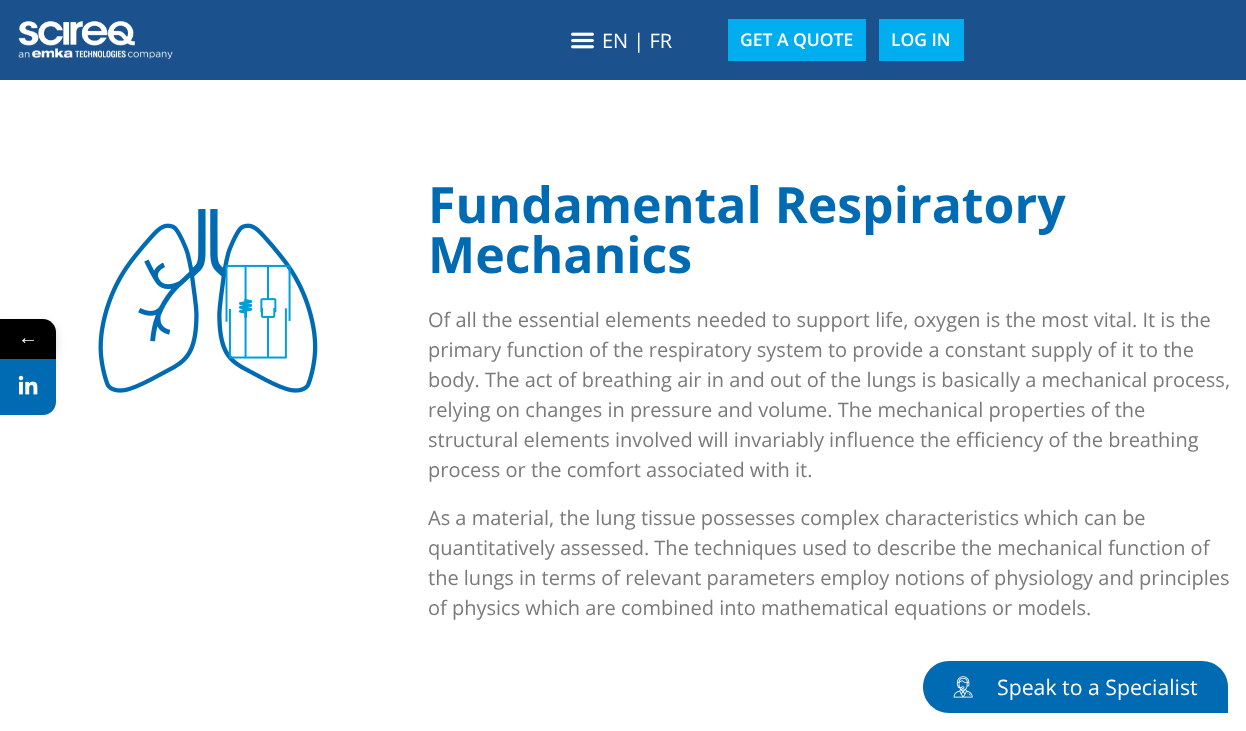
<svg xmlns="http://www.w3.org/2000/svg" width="1246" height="731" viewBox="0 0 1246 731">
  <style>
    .t1 { font: 20px Open Sans; fill: #fff; }
    .t2 { font: 600 17.5px Open Sans; fill: #fff; }
    .t3 { font: 20px Liberation Serif; fill: #fff; }
    .t4 { font: bold 50px Open Sans; fill: #006bb3; }
    .t5 { font: 20px Open Sans; fill: #7a7a7a; }
    .t6 { font: 21.25px Open Sans; fill: #fff; }
  </style>
  <rect width="100%" height="100%" fill="#fff"/>
  <rect x="0" y="0" width="1246" height="80" fill="#1b528e"/>
  <image x="18" y="21" width="155" height="38" href="images/1.png"/>
  <image x="571" y="32" width="23" height="17" href="images/2.png"/>
  <text x="602" y="48" class="t1">EN | FR</text>
  <rect x="728" y="19" width="138" height="42" fill="#00aeef"/>
  <text x="740" y="46" class="t2">GET A QUOTE</text>
  <rect x="879" y="19" width="85" height="42" fill="#00aeef"/>
  <text x="891" y="46" class="t2">LOG IN</text>
  <rect x="0" y="323" width="56" height="40" rx="13" fill="#00000029" filter="blur(4px)"/>
  <path d="M0 319H43C50 319 56 325 56 332V359H0Z" fill="#000"/>
  <text x="18" y="344" class="t3">←</text>
  <path d="M0 359H56V402C56 409 50 415 43 415H0Z" fill="#006bb3"/>
  <image x="18" y="375" width="20" height="20" href="images/3.png"/>
  <image x="98" y="209" width="220" height="184" href="images/4.png"/>
  <text x="428" y="223" class="t4">Fundamental Respiratory</text>
  <text x="428" y="273" class="t4">Mechanics</text>
  <text x="428" y="327" class="t5">Of all the essential elements needed to support life, oxygen is the most vital. It is the</text>
  <text x="428" y="357" class="t5">primary function of the respiratory system to provide a constant supply of it to the</text>
  <text x="428" y="387" class="t5">body. The act of breathing air in and out of the lungs is basically a mechanical process,</text>
  <text x="428" y="417" class="t5">relying on changes in pressure and volume. The mechanical properties of the</text>
  <text x="428" y="447" class="t5">structural elements involved will invariably influence the efficiency of the breathing</text>
  <text x="428" y="477" class="t5">process or the comfort associated with it.</text>
  <text x="428" y="525" class="t5">As a material, the lung tissue possesses complex characteristics which can be</text>
  <text x="428" y="555" class="t5">quantitatively assessed. The techniques used to describe the mechanical function of</text>
  <text x="428" y="585" class="t5">the lungs in terms of relevant parameters employ notions of physiology and principles</text>
  <text x="428" y="615" class="t5">of physics which are combined into mathematical equations or models.</text>
  <path d="M949 661H1202C1216.5 661 1228 672.5 1228 687V713H949C934.5 713 923 701.5 923 687C923 672.5 934.5 661 949 661Z" fill="#006bb3"/>
  <image x="953" y="676" width="20" height="22" href="images/5.png"/>
  <text x="997" y="695" class="t6">Speak to a Specialist</text>
</svg>
